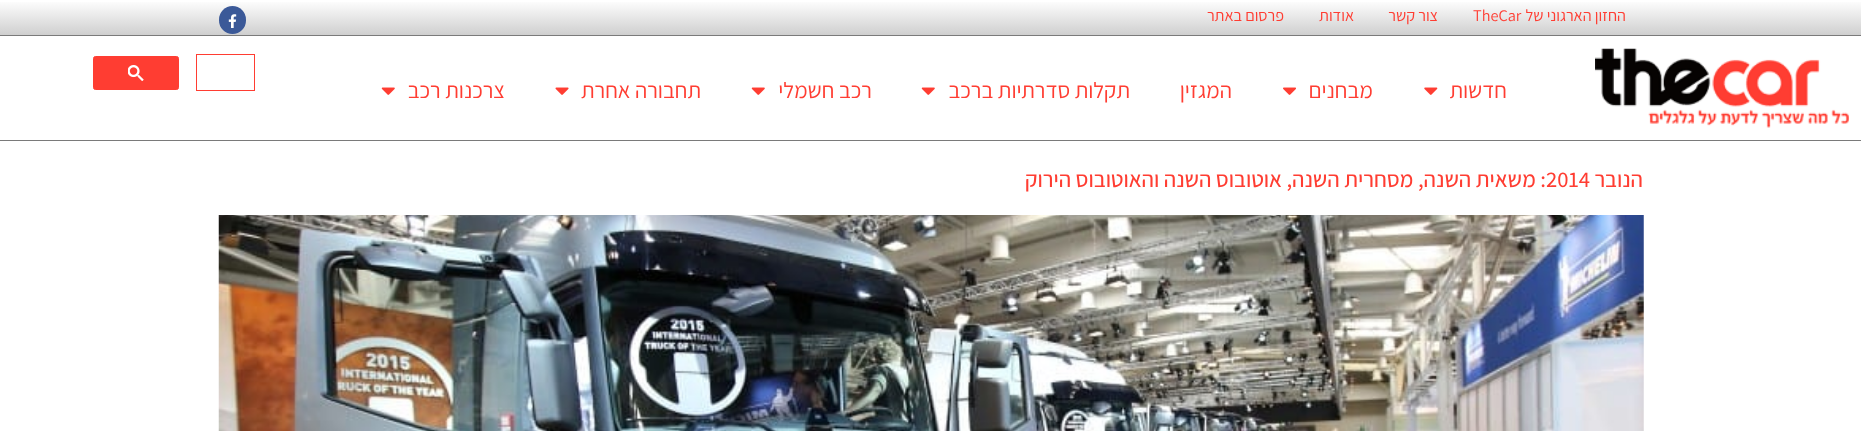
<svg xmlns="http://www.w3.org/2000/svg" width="1861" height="431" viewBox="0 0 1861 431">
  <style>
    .t1 { font: 16.25px Assistant; direction: rtl; fill: #ff3d32; }
    .t2 { font: 16.25px Assistant; fill: #ff3d32; }
    .t3 { font: 22.5px Assistant; direction: rtl; fill: #ff3d32; }
    .t4 { font: 500 22.5px Assistant; direction: rtl; fill: #ff3d32; }
    .t5 { font: 500 22.5px Assistant; fill: #ff3d32; }
  </style>
  <defs>
    <linearGradient id="g1" gradientUnits="userSpaceOnUse" x1="931" y1="0" x2="931" y2="35"><stop offset="0" stop-color="#fff"/><stop offset="1" stop-color="#cfcfcf"/></linearGradient>
  </defs>
  <rect width="100%" height="100%" fill="#fff"/>
  <rect x="0" y="2" width="1861" height="33" fill="url(#g1)"/>
  <text x="1626" y="21" class="t1">החזון הארגוני של</text>
  <text x="1473" y="21" class="t2">TheCar</text>
  <text x="1438" y="21" class="t1">צור קשר</text>
  <text x="1354" y="21" class="t1">אודות</text>
  <text x="1284" y="21" class="t1">פרסום באתר</text>
  <rect x="219" y="6" width="27" height="28" rx="13.5" fill="#3b5998"/>
  <image x="228" y="14" width="9" height="14" href="images/1.png"/>
  <rect x="0" y="35" width="1861" height="1" fill="#7a7a7a"/>
  <rect x="0" y="140" width="1861" height="1" fill="#7a7a7a"/>
  <image x="1595" y="48" width="254" height="80" href="images/2.png"/>
  <text x="1507" y="98" class="t3">חדשות</text>
  <image x="1424" y="87" width="14" height="8" href="images/3.png"/>
  <text x="1373" y="98" class="t3">מבחנים</text>
  <image x="1283" y="87" width="13" height="8" href="images/4.png"/>
  <text x="1232" y="98" class="t3">המגזין</text>
  <text x="1130" y="98" class="t3">תקלות סדרתיות ברכב</text>
  <image x="921" y="87" width="14" height="8" href="images/5.png"/>
  <text x="872" y="98" class="t3">רכב חשמלי</text>
  <image x="751" y="87" width="14" height="8" href="images/5.png"/>
  <text x="701" y="98" class="t3">תחבורה אחרת</text>
  <image x="555" y="87" width="14" height="8" href="images/6.png"/>
  <text x="505" y="98" class="t3">צרכנות רכב</text>
  <image x="381" y="87" width="14" height="8" href="images/5.png"/>
  <rect x="196.5" y="54.5" width="58" height="36" fill="none" stroke="#ff3d32"/>
  <rect x="93.5" y="56.5" width="85" height="33" rx="2" fill="#ff3d32" stroke="#ff3d32"/>
  <image x="128" y="65" width="16" height="16" href="images/7.png"/>
  <text x="1643" y="187" class="t4">הנובר</text>
  <text x="1546" y="187" class="t5">2014</text>
  <text x="1546" y="187" class="t4">: משאית השנה, מסחרית השנה, אוטובוס השנה והאוטובוס הירוק</text>
  <image x="218" y="215" width="1426" height="216" href="images/8.png"/>
</svg>
